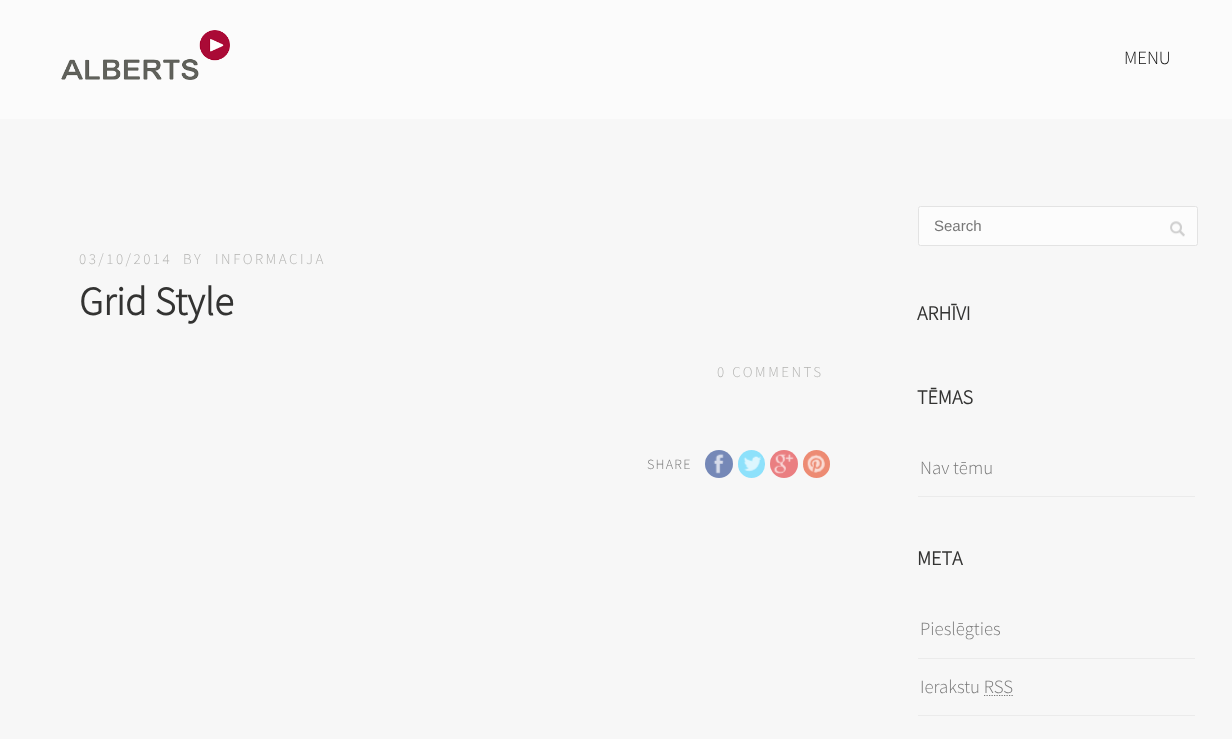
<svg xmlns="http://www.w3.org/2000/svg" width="1232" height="739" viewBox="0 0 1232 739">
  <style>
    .t1 { font: 300 18.75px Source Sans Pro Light; fill: #0a0a0a; }
    .t2 { font: 300 15px Source Sans Pro Light; letter-spacing: 2.5px; fill: #b3b3b1; }
    .t3 { font: bold 40px Source Sans Pro Light; fill: #333332; }
    .t4 { font: 300 14px Source Sans Pro Light; letter-spacing: 1.25px; fill: #777; }
    .t5 { font: 15px Liberation Sans; fill: #777; }
    .t6 { font: bold 20px Source Sans Pro Light; fill: #333332; }
    .t7 { font: 300 18.75px Source Sans Pro Light; fill: #777; }
  </style>
  <rect width="100%" height="100%" fill="#f7f7f7"/>
  <rect x="0" y="0" width="1232" height="119" fill="#fbfbfb"/>
  <image x="61" y="30" width="169" height="50" href="images/1.png"/>
  <text x="1124" y="64" class="t1">MENU</text>
  <text x="79" y="264" class="t2">03/10/2014</text>
  <text x="183" y="264" class="t2">BY</text>
  <text x="215" y="264" class="t2">INFORMACIJA</text>
  <text x="79" y="315" class="t3">Grid Style</text>
  <text x="717" y="377" class="t2">0 COMMENTS</text>
  <text x="647" y="469" class="t4">SHARE</text>
  <circle cx="719" cy="464" r="14" fill="#7588b7"/>
  <image x="713" y="453" width="11" height="21" href="images/2.png"/>
  <rect x="738" y="450" width="27" height="28" rx="13.5" fill="#8de1fb"/>
  <image x="743" y="456" width="19" height="16" href="images/3.png"/>
  <circle cx="784" cy="464" r="14" fill="#ea7e81"/>
  <image x="773" y="453" width="21" height="21" href="images/4.png"/>
  <rect x="803" y="450" width="27" height="28" rx="13.5" fill="#ed8b73"/>
  <image x="807" y="454" width="18" height="19" href="images/5.png"/>
  <rect x="918.5" y="206.5" width="279" height="39" rx="2" fill="#fcfcfc" stroke="#e3e3e3"/>
  <text x="934" y="231" class="t5">Search</text>
  <image x="1170" y="221" width="15" height="16" href="images/6.png"/>
  <text x="917" y="320" class="t6">ARHĪVI</text>
  <text x="917" y="404" class="t6">TĒMAS</text>
  <rect x="918" y="496" width="277" height="1" fill="#ebebeb"/>
  <text x="920" y="474" class="t7">Nav tēmu</text>
  <text x="917" y="565" class="t6">META</text>
  <rect x="918" y="658" width="277" height="1" fill="#ebebeb"/>
  <text x="920" y="635" class="t7">Pieslēgties</text>
  <rect x="918" y="715" width="277" height="1" fill="#ebebeb"/>
  <text x="920" y="693" class="t7">Ierakstu RSS</text>
  <path d="M984 695.5H1013" fill="none" stroke="#777" stroke-width="1.2" stroke-dasharray="1.25 1.25"/>
</svg>
